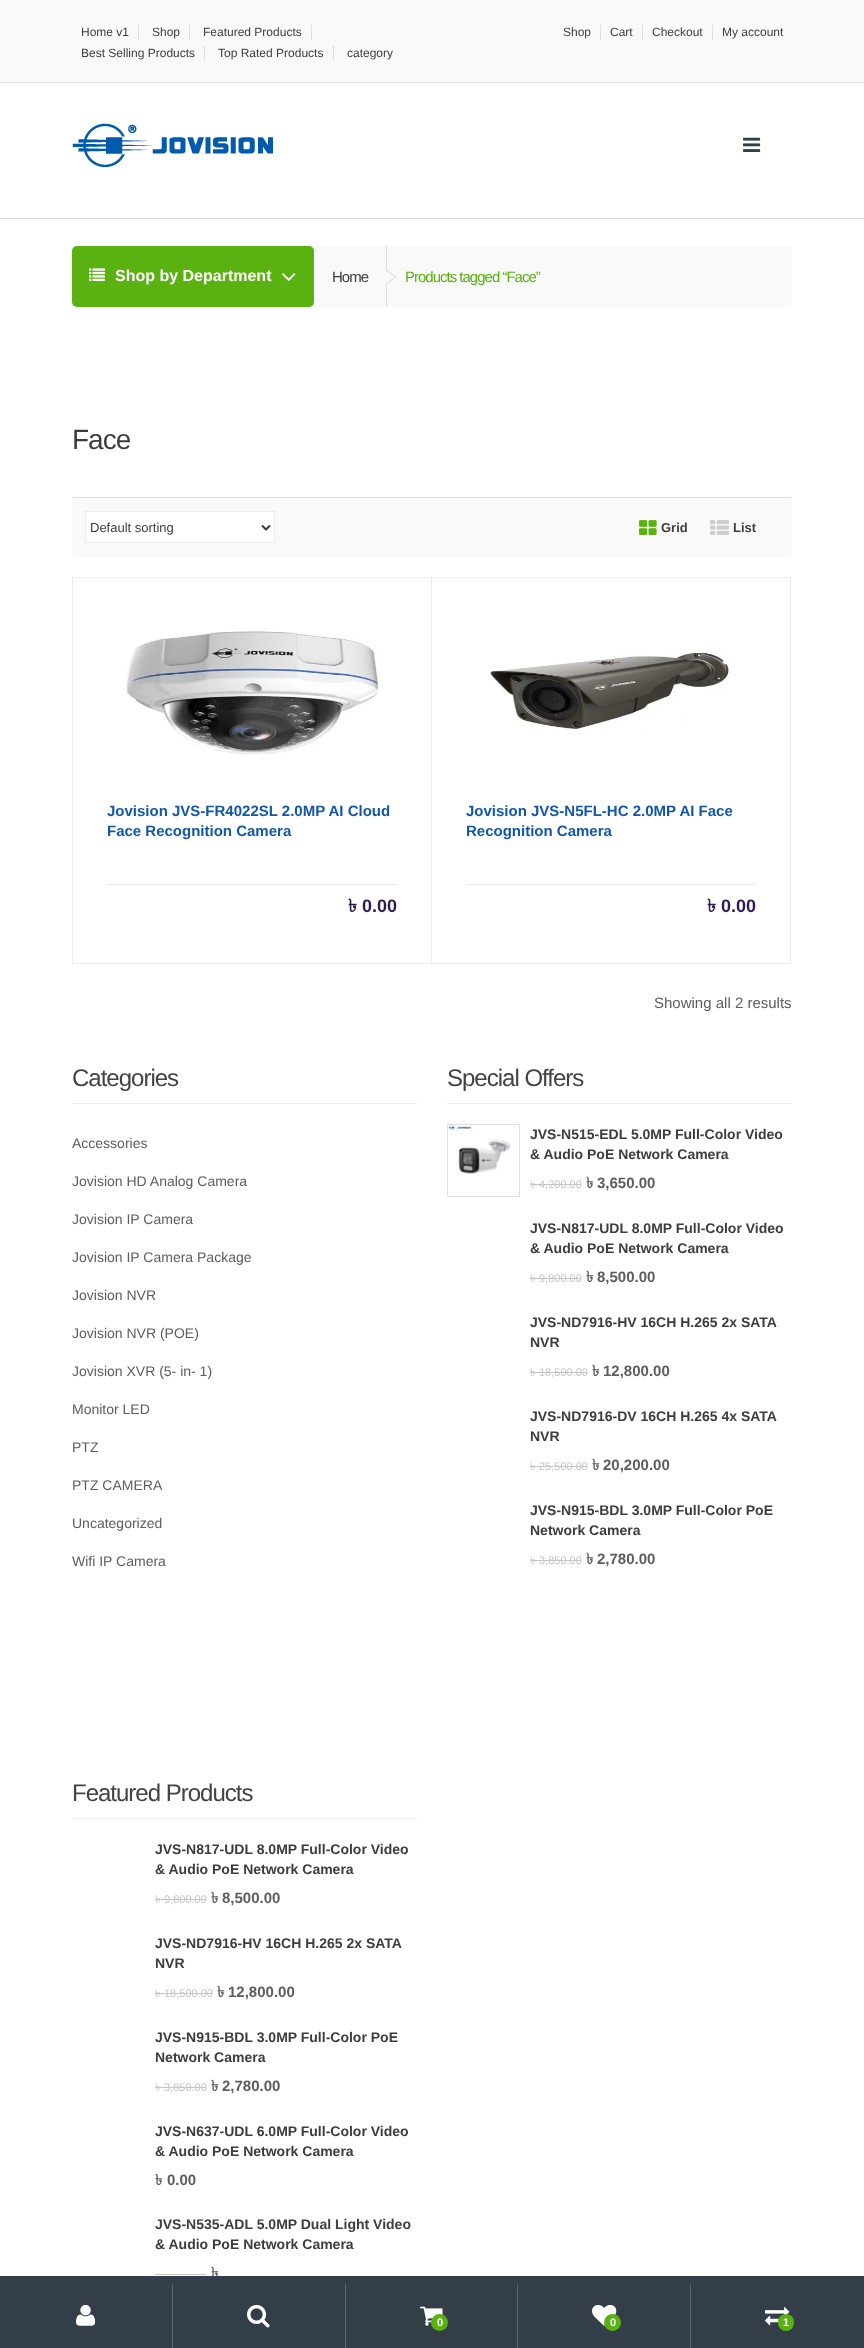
<svg xmlns="http://www.w3.org/2000/svg" width="864" height="2348" viewBox="0 0 864 2348">
  <style>
    .t1 { font: 12px Liberation Sans; fill: #3d3d3d; }
    .t2 { font: bold 16px Liberation Sans; fill: #fff; }
    .t3 { font: 15px Liberation Sans; letter-spacing: -1px; fill: #3d3d3d; }
    .t4 { font: 15px Liberation Sans; letter-spacing: -1px; fill: #59b210; }
    .t5 { font: 28px Liberation Sans; letter-spacing: -1px; fill: #3d3d3d; }
    .t6 { font: 13px Liberation Sans; fill: #3d3d3d; }
    .t7 { font: bold 13px Liberation Sans; fill: #3d3d3d; }
    .t8 { font: bold 15px Liberation Sans; fill: #1257ab; }
    .t9 { font: bold 18px Lohit Bengali; fill: #301c53; }
    .t10 { font: bold 18px Liberation Sans; fill: #301c53; }
    .t11 { font: 15px Liberation Sans; fill: #5d5d5d; }
    .t12 { font: 24px Liberation Sans; letter-spacing: -1px; fill: #434343; }
    .t13 { font: 14px Liberation Sans; fill: #5d5d5d; }
    .t14 { font: bold 14px Liberation Sans; fill: #3d3d3d; }
    .t15 { font: 11px Lohit Bengali; fill: #c6c6c6; }
    .t16 { font: 11px Liberation Sans; fill: #c6c6c6; }
    .t17 { font: bold 15px Lohit Bengali; fill: #5d5d5d; }
    .t18 { font: bold 15px Liberation Sans; fill: #5d5d5d; }
    .t19 { font: bold 11px Liberation Sans; fill: #fff; }
  </style>
  <rect width="100%" height="100%" fill="#fff"/>
  <rect x="0" y="0" width="864" height="82" fill="#f9f9f9"/>
  <rect x="0" y="82" width="864" height="1" fill="#e0dfdf"/>
  <rect x="138" y="25" width="1" height="15" fill="#e0dfdf"/>
  <text x="81" y="36" class="t1">Home v1</text>
  <rect x="189" y="25" width="1" height="15" fill="#e0dfdf"/>
  <text x="152" y="36" class="t1">Shop</text>
  <rect x="311" y="25" width="1" height="15" fill="#e0dfdf"/>
  <text x="203" y="36" class="t1">Featured Products</text>
  <rect x="204" y="46" width="1" height="15" fill="#e0dfdf"/>
  <text x="81" y="57" class="t1">Best Selling Products</text>
  <rect x="333" y="46" width="1" height="15" fill="#e0dfdf"/>
  <text x="218" y="57" class="t1">Top Rated Products</text>
  <text x="347" y="57" class="t1">category</text>
  <rect x="600" y="25" width="1" height="15" fill="#e0dfdf"/>
  <text x="563" y="36" class="t1">Shop</text>
  <rect x="642" y="25" width="1" height="15" fill="#e0dfdf"/>
  <text x="610" y="36" class="t1">Cart</text>
  <rect x="712" y="25" width="1" height="15" fill="#e0dfdf"/>
  <text x="652" y="36" class="t1">Checkout</text>
  <text x="722" y="36" class="t1">My account</text>
  <rect x="0" y="218" width="864" height="1" fill="#e0dfdf"/>
  <image x="72" y="123" width="201" height="44" href="images/1.png"/>
  <image x="743" y="137" width="18" height="15" href="images/2.png"/>
  <rect x="72" y="246" width="720" height="61" rx="5" fill="#f9f9f9"/>
  <rect x="72" y="246" width="242" height="61" rx="5" fill="#59b210"/>
  <image x="89" y="268" width="16" height="13" href="images/3.png"/>
  <text x="115" y="281" class="t2">Shop by Department</text>
  <image x="282" y="273" width="14" height="8" href="images/4.png"/>
  <rect x="386" y="246" width="1" height="61" fill="#e0dfdf"/>
  <path d="M387 284V270L397 277Z" fill="#e0dfdf"/>
  <path d="M385 284V270L395 277Z" fill="#f9f9f9"/>
  <text x="332" y="282" class="t3">Home</text>
  <text x="405" y="282" class="t4">Products tagged “Face”</text>
  <rect x="72" y="497" width="720" height="1" fill="#e0dfdf"/>
  <text x="72" y="449" class="t5">Face</text>
  <rect x="72" y="498" width="720" height="59" rx="5" fill="#f9f9f9"/>
  <rect x="85.5" y="511.5" width="189" height="31" fill="#fff" stroke="#ececec"/>
  <path d="M262 525.5L266 529.5L270 525.5" fill="none" stroke="#3d3d3d" stroke-width="2"/>
  <text x="90" y="532" class="t6">Default sorting</text>
  <image x="639" y="520" width="18" height="15" href="images/5.png"/>
  <text x="661" y="532" class="t7">Grid</text>
  <image x="710" y="520" width="19" height="15" href="images/6.png"/>
  <text x="733" y="532" class="t7">List</text>
  <rect x="72.5" y="577.5" width="359" height="386" fill="none" stroke="#ececec"/>
  <image x="126" y="631" width="254" height="124" href="images/7.png"/>
  <text x="107" y="816" class="t8">Jovision JVS-FR4022SL 2.0MP AI Cloud</text>
  <text x="107" y="836" class="t8">Face Recognition Camera</text>
  <rect x="107" y="884" width="290" height="1" fill="#ececec"/>
  <text x="348" y="912" class="t9">৳</text>
  <text x="362" y="912" class="t10">0.00</text>
  <rect x="431.5" y="577.5" width="359" height="386" fill="none" stroke="#ececec"/>
  <image x="489" y="651" width="240" height="80" href="images/8.png"/>
  <text x="466" y="816" class="t8">Jovision JVS-N5FL-HC 2.0MP AI Face</text>
  <text x="466" y="836" class="t8">Recognition Camera</text>
  <rect x="466" y="884" width="290" height="1" fill="#ececec"/>
  <text x="707" y="912" class="t9">৳</text>
  <text x="721" y="912" class="t10">0.00</text>
  <text x="654" y="1008" class="t11">Showing all 2 results</text>
  <rect x="72" y="1103" width="345" height="1" fill="#ececec"/>
  <text x="72" y="1086" class="t12">Categories</text>
  <text x="72" y="1148" class="t13">Accessories</text>
  <text x="72" y="1186" class="t13">Jovision HD Analog Camera</text>
  <text x="72" y="1224" class="t13">Jovision IP Camera</text>
  <text x="72" y="1262" class="t13">Jovision IP Camera Package</text>
  <text x="72" y="1300" class="t13">Jovision NVR</text>
  <text x="72" y="1338" class="t13">Jovision NVR (POE)</text>
  <text x="72" y="1376" class="t13">Jovision XVR (5- in- 1)</text>
  <text x="72" y="1414" class="t13">Monitor LED</text>
  <text x="72" y="1452" class="t13">PTZ</text>
  <text x="72" y="1490" class="t13">PTZ CAMERA</text>
  <text x="72" y="1528" class="t13">Uncategorized</text>
  <text x="72" y="1566" class="t13">Wifi IP Camera</text>
  <rect x="447" y="1103" width="345" height="1" fill="#ececec"/>
  <text x="447" y="1086" class="t12">Special Offers</text>
  <image x="448" y="1125" width="63" height="49" href="images/9.png"/>
  <rect x="447.5" y="1124.5" width="72" height="72" fill="none" stroke="#e0e0e0"/>
  <text x="530" y="1139" class="t14">JVS-N515-EDL 5.0MP Full-Color Video</text>
  <text x="530" y="1159" class="t14">&amp; Audio PoE Network Camera</text>
  <text x="530" y="1188" class="t15">৳</text>
  <rect x="530" y="1184" width="9" height="1" fill="#c6c6c6"/>
  <text x="539" y="1188" class="t16">4,200.00</text>
  <rect x="539" y="1184" width="42" height="1" fill="#c6c6c6"/>
  <text x="586" y="1188" class="t17">৳</text>
  <text x="597" y="1188" class="t18">3,650.00</text>
  <text x="530" y="1233" class="t14">JVS-N817-UDL 8.0MP Full-Color Video</text>
  <text x="530" y="1253" class="t14">&amp; Audio PoE Network Camera</text>
  <text x="530" y="1282" class="t15">৳</text>
  <rect x="530" y="1278" width="9" height="1" fill="#c6c6c6"/>
  <text x="539" y="1282" class="t16">9,800.00</text>
  <rect x="539" y="1278" width="42" height="1" fill="#c6c6c6"/>
  <text x="586" y="1282" class="t17">৳</text>
  <text x="597" y="1282" class="t18">8,500.00</text>
  <text x="530" y="1327" class="t14">JVS-ND7916-HV 16CH H.265 2x SATA</text>
  <text x="530" y="1347" class="t14">NVR</text>
  <text x="530" y="1376" class="t15">৳</text>
  <rect x="530" y="1372" width="9" height="1" fill="#c6c6c6"/>
  <text x="539" y="1376" class="t16">18,500.00</text>
  <rect x="539" y="1372" width="48" height="1" fill="#c6c6c6"/>
  <text x="592" y="1376" class="t17">৳</text>
  <text x="603" y="1376" class="t18">12,800.00</text>
  <text x="530" y="1421" class="t14">JVS-ND7916-DV 16CH H.265 4x SATA</text>
  <text x="530" y="1441" class="t14">NVR</text>
  <text x="530" y="1470" class="t15">৳</text>
  <rect x="530" y="1466" width="9" height="1" fill="#c6c6c6"/>
  <text x="539" y="1470" class="t16">25,500.00</text>
  <rect x="539" y="1466" width="48" height="1" fill="#c6c6c6"/>
  <text x="592" y="1470" class="t17">৳</text>
  <text x="603" y="1470" class="t18">20,200.00</text>
  <text x="530" y="1515" class="t14">JVS-N915-BDL 3.0MP Full-Color PoE</text>
  <text x="530" y="1535" class="t14">Network Camera</text>
  <text x="530" y="1564" class="t15">৳</text>
  <rect x="530" y="1560" width="9" height="1" fill="#c6c6c6"/>
  <text x="539" y="1564" class="t16">3,850.00</text>
  <rect x="539" y="1560" width="42" height="1" fill="#c6c6c6"/>
  <text x="586" y="1564" class="t17">৳</text>
  <text x="597" y="1564" class="t18">2,780.00</text>
  <rect x="72" y="1818" width="345" height="1" fill="#ececec"/>
  <text x="72" y="1801" class="t12">Featured Products</text>
  <text x="155" y="1854" class="t14">JVS-N817-UDL 8.0MP Full-Color Video</text>
  <text x="155" y="1874" class="t14">&amp; Audio PoE Network Camera</text>
  <text x="155" y="1903" class="t15">৳</text>
  <rect x="155" y="1899" width="9" height="1" fill="#c6c6c6"/>
  <text x="164" y="1903" class="t16">9,800.00</text>
  <rect x="164" y="1899" width="42" height="1" fill="#c6c6c6"/>
  <text x="211" y="1903" class="t17">৳</text>
  <text x="222" y="1903" class="t18">8,500.00</text>
  <text x="155" y="1948" class="t14">JVS-ND7916-HV 16CH H.265 2x SATA</text>
  <text x="155" y="1968" class="t14">NVR</text>
  <text x="155" y="1997" class="t15">৳</text>
  <rect x="155" y="1993" width="9" height="1" fill="#c6c6c6"/>
  <text x="164" y="1997" class="t16">18,500.00</text>
  <rect x="164" y="1993" width="48" height="1" fill="#c6c6c6"/>
  <text x="217" y="1997" class="t17">৳</text>
  <text x="228" y="1997" class="t18">12,800.00</text>
  <text x="155" y="2042" class="t14">JVS-N915-BDL 3.0MP Full-Color PoE</text>
  <text x="155" y="2062" class="t14">Network Camera</text>
  <text x="155" y="2091" class="t15">৳</text>
  <rect x="155" y="2087" width="9" height="1" fill="#c6c6c6"/>
  <text x="164" y="2091" class="t16">3,850.00</text>
  <rect x="164" y="2087" width="42" height="1" fill="#c6c6c6"/>
  <text x="211" y="2091" class="t17">৳</text>
  <text x="222" y="2091" class="t18">2,780.00</text>
  <text x="155" y="2136" class="t14">JVS-N637-UDL 6.0MP Full-Color Video</text>
  <text x="155" y="2156" class="t14">&amp; Audio PoE Network Camera</text>
  <text x="155" y="2185" class="t17">৳</text>
  <text x="167" y="2185" class="t18">0.00</text>
  <text x="155" y="2229" class="t14">JVS-N535-ADL 5.0MP Dual Light Video</text>
  <text x="155" y="2249" class="t14">&amp; Audio PoE Network Camera</text>
  <rect x="155" y="2274" width="51" height="1" fill="#c6c6c6"/>
  <text x="211" y="2278" class="t17">৳</text>
  <rect x="0" y="2276" width="864" height="8" fill="#333e48"/>
  <rect x="173" y="2284" width="172" height="64" fill="#333e48"/>
  <rect x="345" y="2284" width="1" height="64" fill="#5c656d"/>
  <image x="247" y="2304" width="23" height="24" href="images/10.png"/>
  <rect x="0" y="2284" width="172" height="64" fill="#333e48"/>
  <rect x="172" y="2284" width="1" height="64" fill="#5c656d"/>
  <image x="76" y="2304" width="20" height="22" href="images/11.png"/>
  <rect x="346" y="2284" width="171" height="64" fill="#333e48"/>
  <rect x="517" y="2284" width="1" height="64" fill="#5c656d"/>
  <image x="420" y="2306" width="23" height="20" href="images/12.png"/>
  <circle cx="439.5" cy="2322.5" r="8.5" fill="#59b210"/>
  <text x="437" y="2326" class="t19">0</text>
  <rect x="518" y="2284" width="172" height="64" fill="#333e48"/>
  <rect x="690" y="2284" width="1" height="64" fill="#5c656d"/>
  <image x="592" y="2304" width="25" height="22" href="images/13.png"/>
  <circle cx="612.5" cy="2322.5" r="8.5" fill="#59b210"/>
  <text x="610" y="2326" class="t19">0</text>
  <rect x="691" y="2284" width="173" height="64" fill="#333e48"/>
  <image x="765" y="2307" width="25" height="19" href="images/14.png"/>
  <rect x="778" y="2314" width="16" height="17" rx="8" fill="#59b210"/>
  <text x="783" y="2326" class="t19">1</text>
</svg>
